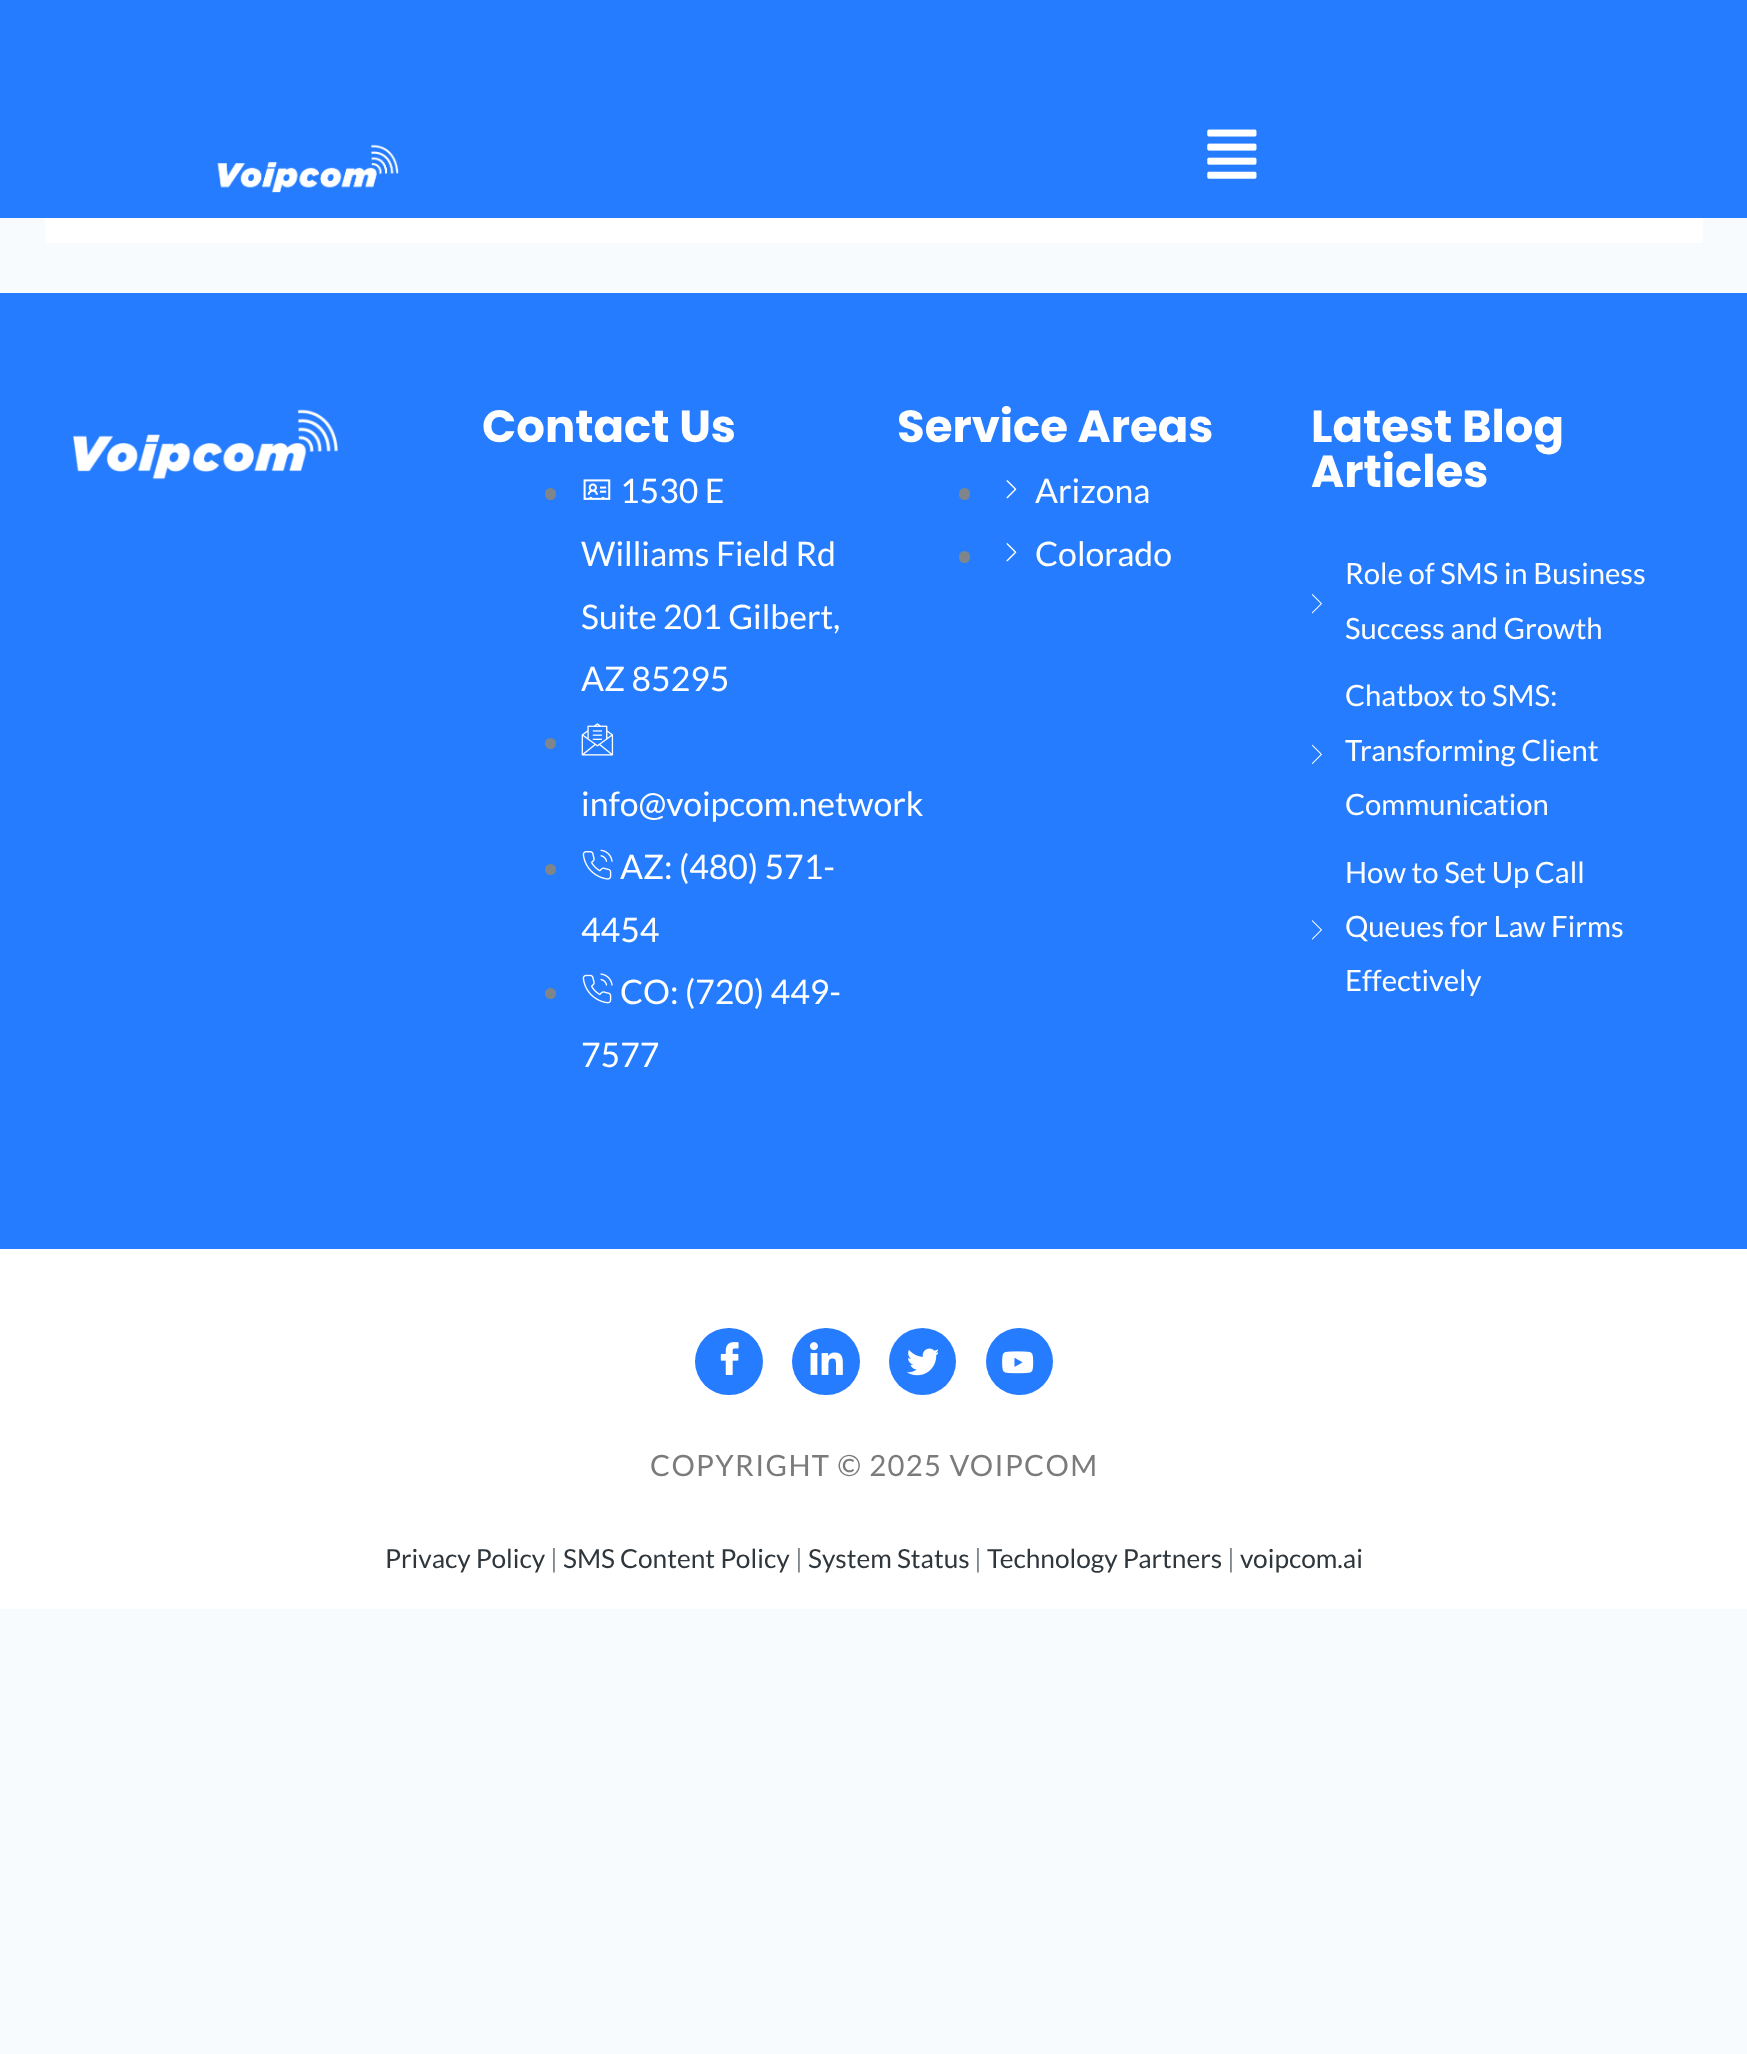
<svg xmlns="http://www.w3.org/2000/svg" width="1747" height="2054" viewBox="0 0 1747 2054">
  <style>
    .t1 { font: bold 45px Poppins; fill: #fff; }
    .t2 { font: 33.75px Lato; fill: #fff; }
    .t3 { font: 29.25px Lato; fill: #fff; }
    .t4 { font: 29.25px Lato; letter-spacing: 1.35px; fill: #7b7b7b; }
    .t5 { font: 26.25px Lato; fill: #2f373d; }
    .t6 { font: 26.25px Lato; fill: #7e868c; }
  </style>
  <rect width="100%" height="100%" fill="#f8fbfe"/>
  <rect x="0" y="0" width="1747" height="218" fill="#257cff"/>
  <image x="217" y="144" width="182" height="49" href="images/1.png"/>
  <image x="1207" y="129" width="50" height="50" href="images/2.png"/>
  <rect x="45" y="218" width="1658" height="25" fill="#fff"/>
  <rect x="0" y="293" width="1747" height="956" fill="#257cff"/>
  <image x="73" y="409" width="265" height="71" href="images/3.png"/>
  <text x="482" y="442" class="t1">Contact Us</text>
  <rect x="545" y="488" width="11" height="12" rx="5.5" fill="#7e868c"/>
  <image x="583" y="479" width="28" height="21" href="images/4.png"/>
  <text x="620" y="503" class="t2">1530 E</text>
  <text x="581" y="566" class="t2">Williams Field Rd</text>
  <text x="581" y="629" class="t2">Suite 201 Gilbert,</text>
  <text x="581" y="691" class="t2">AZ 85295</text>
  <circle cx="550.5" cy="743.5" r="5.5" fill="#7e868c"/>
  <image x="581" y="723" width="33" height="33" href="images/5.png"/>
  <text x="581" y="816" class="t2">info@voipcom.network</text>
  <circle cx="550.5" cy="869.5" r="5.5" fill="#7e868c"/>
  <image x="582" y="849" width="31" height="31" href="images/6.png"/>
  <text x="620" y="879" class="t2">AZ: (480) 571-</text>
  <text x="581" y="942" class="t2">4454</text>
  <circle cx="550.5" cy="993.5" r="5.5" fill="#7e868c"/>
  <image x="582" y="973" width="31" height="31" href="images/7.png"/>
  <text x="620" y="1004" class="t2">CO: (720) 449-</text>
  <text x="581" y="1067" class="t2">7577</text>
  <text x="897" y="442" class="t1">Service Areas</text>
  <rect x="959" y="488" width="11" height="12" rx="5.5" fill="#7e868c"/>
  <image x="1006" y="480" width="11" height="19" href="images/8.png"/>
  <text x="1035" y="503" class="t2">Arizona</text>
  <rect x="959" y="551" width="11" height="12" rx="5.5" fill="#7e868c"/>
  <image x="1006" y="543" width="11" height="19" href="images/8.png"/>
  <text x="1035" y="566" class="t2">Colorado</text>
  <text x="1311" y="442" class="t1">Latest Blog</text>
  <text x="1311" y="487" class="t1">Articles</text>
  <image x="1312" y="594" width="10" height="20" href="images/9.png"/>
  <text x="1345" y="584" class="t3">Role of SMS in Business</text>
  <text x="1345" y="639" class="t3">Success and Growth</text>
  <image x="1312" y="744" width="10" height="20" href="images/10.png"/>
  <text x="1345" y="706" class="t3">Chatbox to SMS:</text>
  <text x="1345" y="761" class="t3">Transforming Client</text>
  <text x="1345" y="815" class="t3">Communication</text>
  <image x="1312" y="920" width="10" height="20" href="images/11.png"/>
  <text x="1345" y="883" class="t3">How to Set Up Call</text>
  <text x="1345" y="937" class="t3">Queues for Law Firms</text>
  <text x="1345" y="991" class="t3">Effectively</text>
  <rect x="0" y="1249" width="1747" height="360" fill="#fff"/>
  <rect x="695" y="1328" width="68" height="67" rx="33.5" fill="#257cff"/>
  <image x="720" y="1342" width="19" height="33" href="images/12.png"/>
  <rect x="792" y="1328" width="68" height="67" rx="33.5" fill="#257cff"/>
  <image x="810" y="1342" width="33" height="33" href="images/13.png"/>
  <circle cx="922.5" cy="1361.5" r="33.5" fill="#257cff"/>
  <image x="907" y="1348" width="31" height="28" href="images/14.png"/>
  <circle cx="1019.5" cy="1361.5" r="33.5" fill="#257cff"/>
  <image x="1002" y="1351" width="32" height="23" href="images/15.png"/>
  <text x="650" y="1476" class="t4">COPYRIGHT © 2025 VOIPCOM</text>
  <text x="385" y="1568" class="t5">Privacy Policy</text>
  <text x="550" y="1568" class="t6">|</text>
  <text x="563" y="1568" class="t5">SMS Content Policy</text>
  <text x="795" y="1568" class="t6">|</text>
  <text x="808" y="1568" class="t5">System Status</text>
  <text x="974" y="1568" class="t6">|</text>
  <text x="987" y="1568" class="t5">Technology Partners</text>
  <text x="1227" y="1568" class="t6">|</text>
  <text x="1240" y="1568" class="t5">voipcom.ai</text>
</svg>
